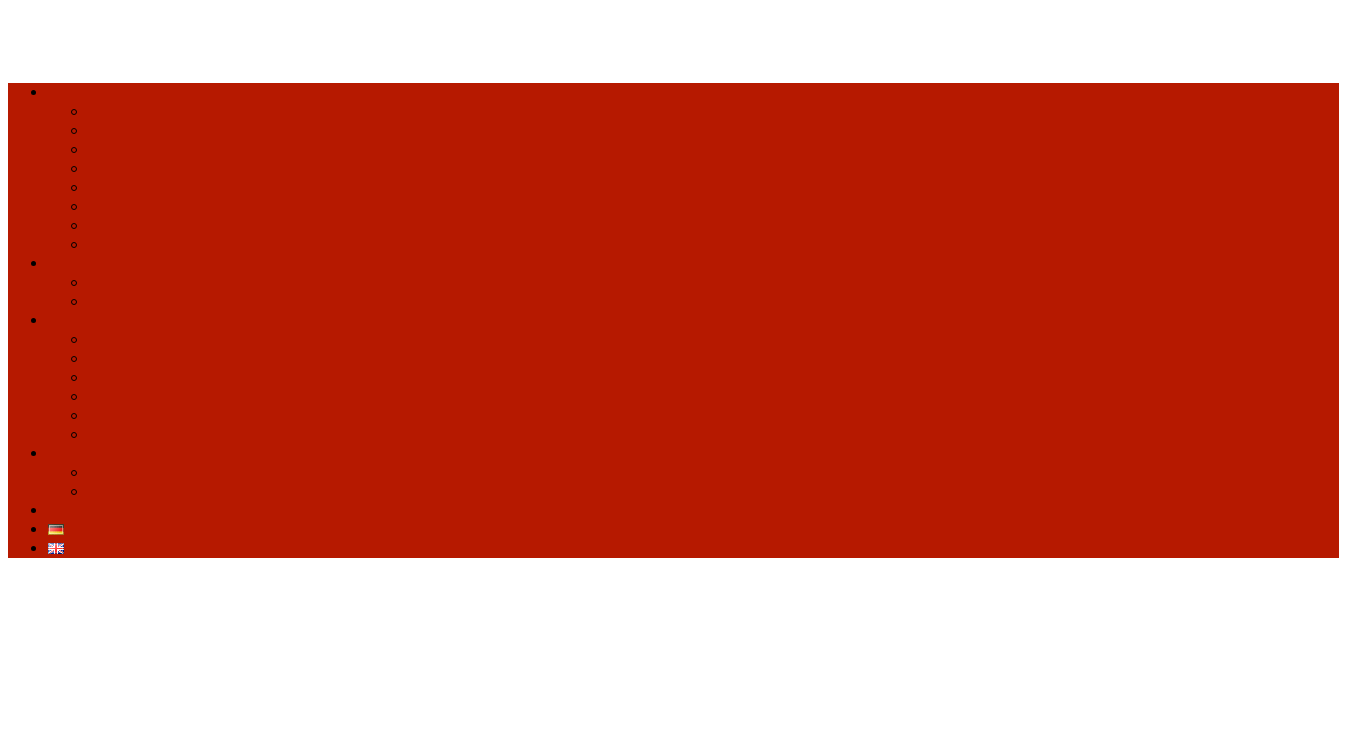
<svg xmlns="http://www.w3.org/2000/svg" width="1347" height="746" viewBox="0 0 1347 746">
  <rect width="100%" height="100%" fill="#fff"/>
  <rect x="8" y="83" width="1331" height="475" fill="#b61900"/>
  <circle cx="33.5" cy="92.5" r="2.5" fill="#000"/>
  <circle cx="74" cy="112" r="2.5" fill="none" stroke="#000"/>
  <circle cx="74" cy="131" r="2.5" fill="none" stroke="#000"/>
  <circle cx="74" cy="150" r="2.5" fill="none" stroke="#000"/>
  <circle cx="74" cy="169" r="2.5" fill="none" stroke="#000"/>
  <circle cx="74" cy="188" r="2.5" fill="none" stroke="#000"/>
  <circle cx="74" cy="207" r="2.5" fill="none" stroke="#000"/>
  <circle cx="74" cy="226" r="2.5" fill="none" stroke="#000"/>
  <circle cx="74" cy="245" r="2.5" fill="none" stroke="#000"/>
  <circle cx="33.5" cy="263.5" r="2.5" fill="#000"/>
  <circle cx="74" cy="283" r="2.5" fill="none" stroke="#000"/>
  <circle cx="74" cy="302" r="2.5" fill="none" stroke="#000"/>
  <circle cx="33.5" cy="320.5" r="2.5" fill="#000"/>
  <circle cx="74" cy="340" r="2.5" fill="none" stroke="#000"/>
  <circle cx="74" cy="359" r="2.5" fill="none" stroke="#000"/>
  <circle cx="74" cy="378" r="2.5" fill="none" stroke="#000"/>
  <circle cx="74" cy="397" r="2.5" fill="none" stroke="#000"/>
  <circle cx="74" cy="416" r="2.5" fill="none" stroke="#000"/>
  <circle cx="74" cy="435" r="2.5" fill="none" stroke="#000"/>
  <circle cx="33.5" cy="453.5" r="2.5" fill="#000"/>
  <circle cx="74" cy="473" r="2.5" fill="none" stroke="#000"/>
  <circle cx="74" cy="492" r="2.5" fill="none" stroke="#000"/>
  <circle cx="33.5" cy="510.5" r="2.5" fill="#000"/>
  <circle cx="33.5" cy="529.5" r="2.5" fill="#000"/>
  <image x="48" y="524" width="16" height="11" href="images/1.png"/>
  <circle cx="33.5" cy="548.5" r="2.5" fill="#000"/>
  <image x="48" y="543" width="16" height="11" href="images/2.png"/>
</svg>
